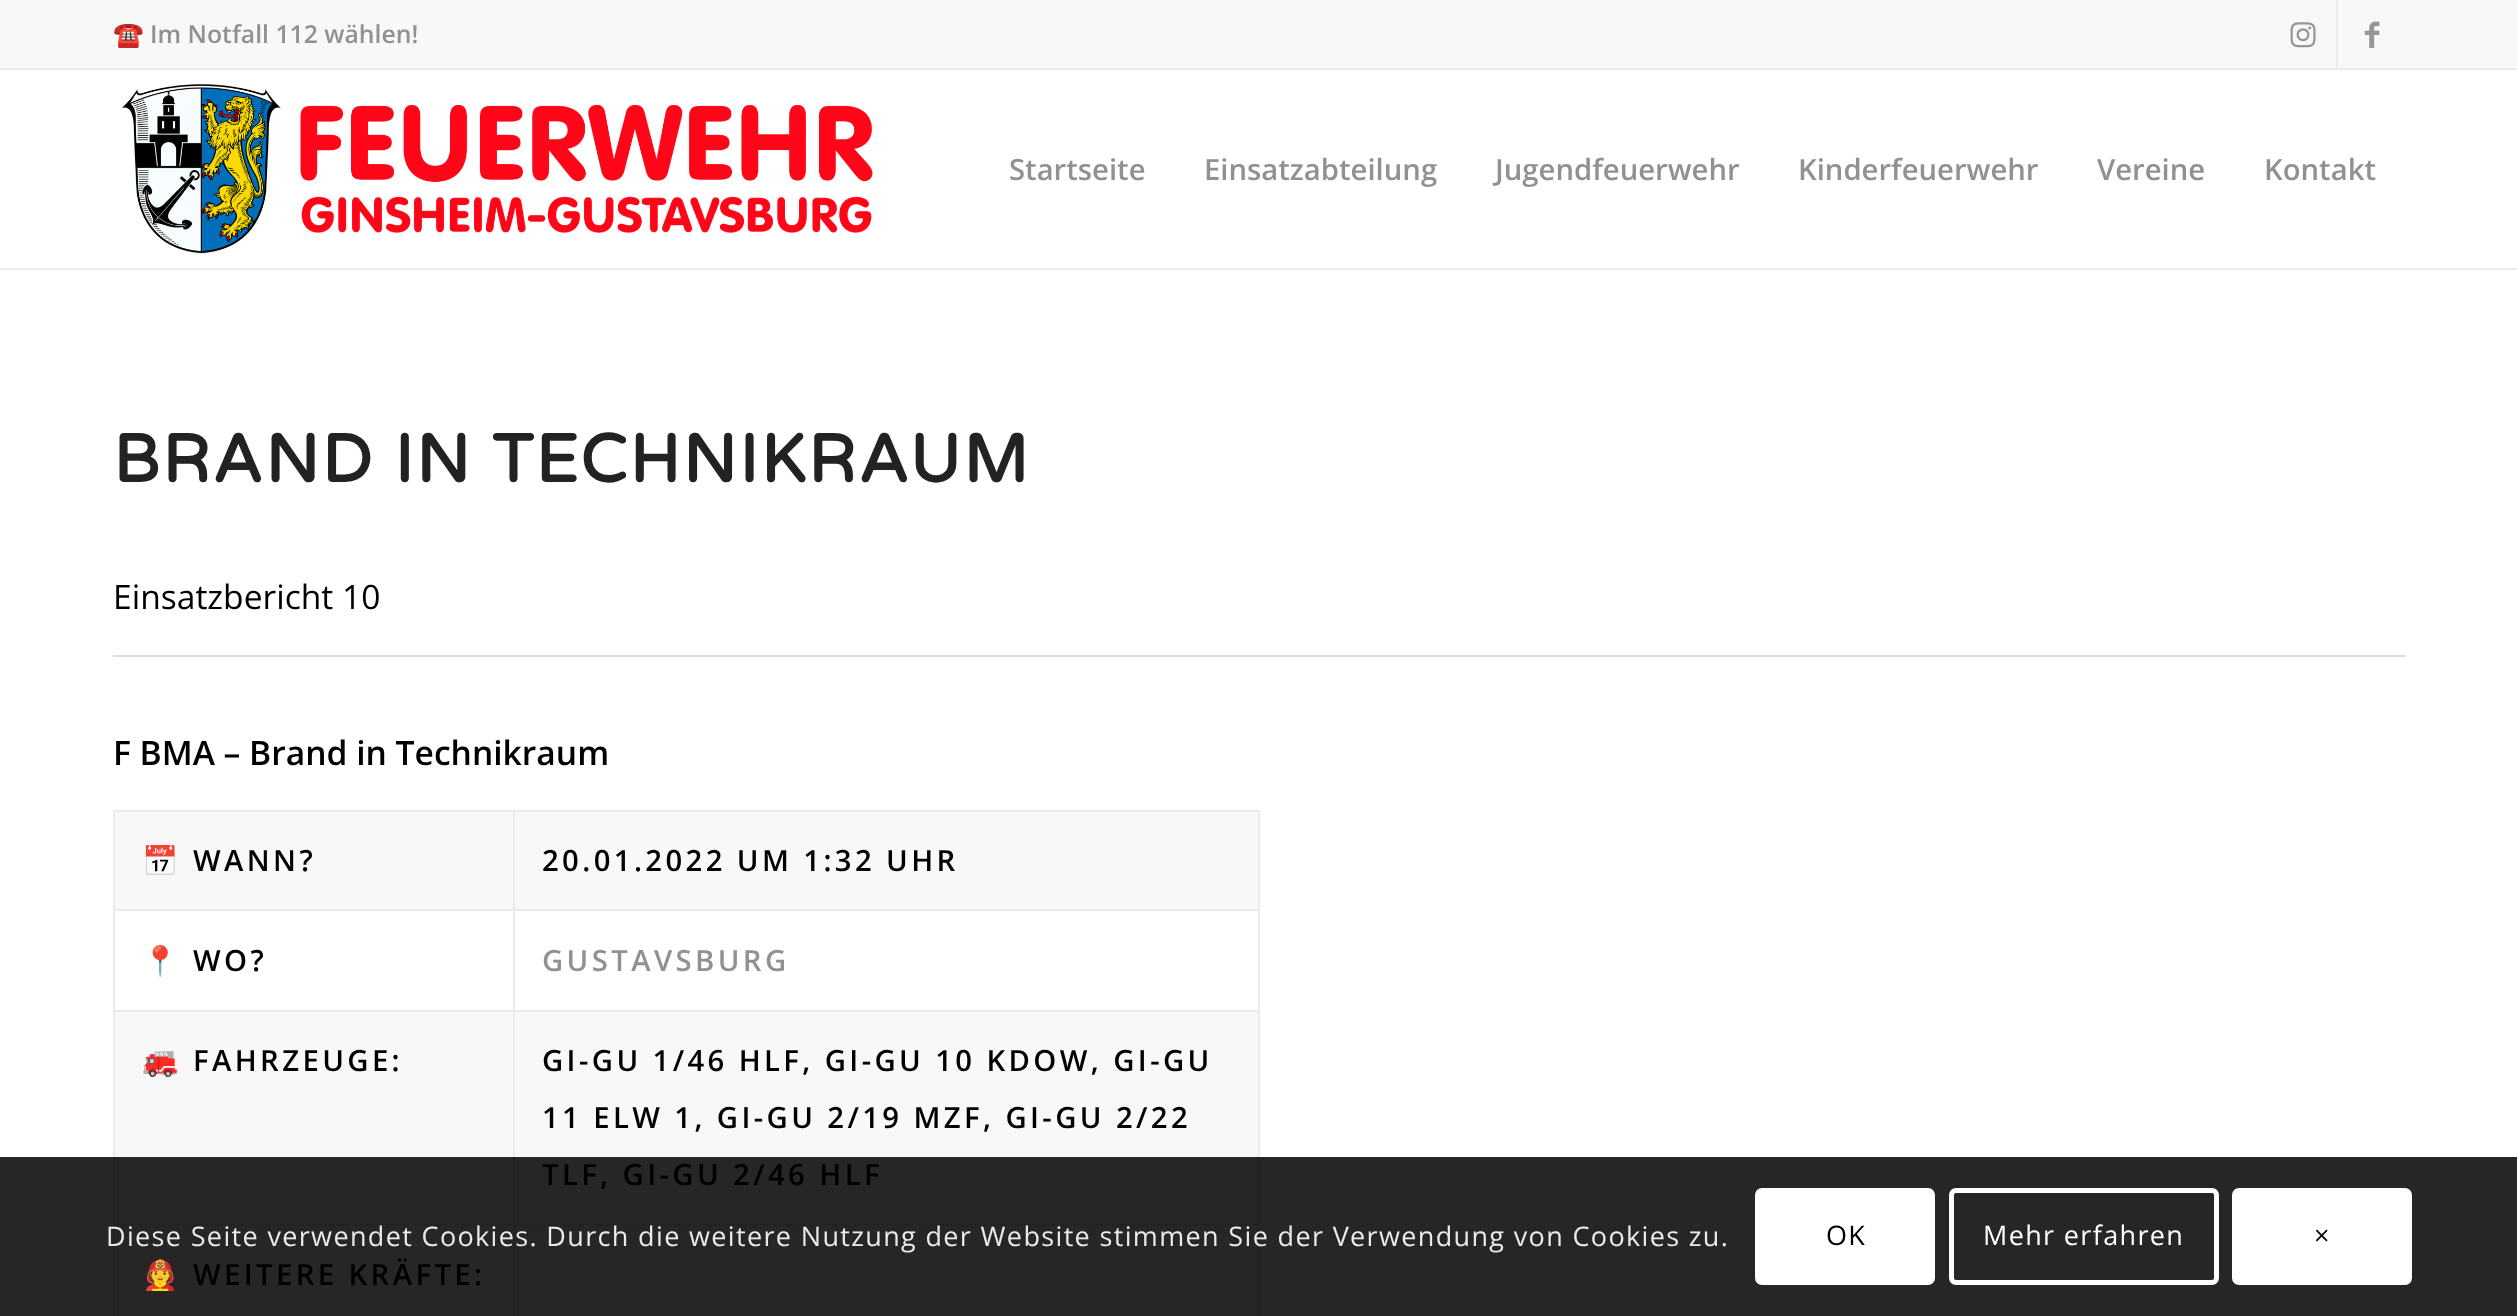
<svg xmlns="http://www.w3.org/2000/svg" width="2517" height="1316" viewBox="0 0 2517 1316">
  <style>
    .t1 { font: bold 24.75px Noto Color Emoji; fill: #919191; }
    .t2 { font: 600 24.75px Open Sans; fill: #919191; }
    .t3 { font: 600 29.25px Open Sans; fill: #919191; }
    .t4 { font: bold 67.5px Varela Round; letter-spacing: 2.25px; fill: #222; }
    .t5 { font: 33.6px Open Sans; fill: #000; }
    .t6 { font: 600 33.6px Open Sans; fill: #000; }
    .t7 { font: bold 29.25px Noto Color Emoji; letter-spacing: 3.4px; fill: #000; }
    .t8 { font: 600 29.25px Open Sans; letter-spacing: 3.4px; fill: #000; }
    .t9 { font: bold 29.25px Noto Color Emoji; letter-spacing: 3.4px; fill: #919191; }
    .t10 { font: 600 29.25px Open Sans; letter-spacing: 3.4px; fill: #919191; }
    .t11 { font: bold 29.25px Noto Color Emoji; letter-spacing: 3.4px; fill: #161616; }
    .t12 { font: 27px Open Sans; letter-spacing: 1.35px; fill: #e9e9e9; }
    .t13 { font: 27px Open Sans; letter-spacing: 1.35px; fill: #000; }
    .t14 { font: 27px Open Sans; letter-spacing: 1.35px; fill: #fff; }
  </style>
  <rect width="100%" height="100%" fill="#fff"/>
  <rect x="0" y="1157" width="2517" height="159" fill="#262626"/>
  <rect x="0" y="0" width="2517" height="68" fill="#f8f8f8"/>
  <rect x="0" y="68" width="2517" height="2" fill="#ebebeb"/>
  <text x="113" y="43" class="t1">☎️</text>
  <text x="150" y="43" class="t2">Im Notfall 112 wählen!</text>
  <rect x="2336" y="0" width="2" height="68" fill="#ebebeb"/>
  <image x="2290" y="22" width="26" height="26" href="images/1.png"/>
  <image x="2364" y="21" width="16" height="27" href="images/2.png"/>
  <rect x="0" y="268" width="2517" height="2" fill="#ebebeb"/>
  <image x="122" y="84" width="751" height="170" href="images/3.png"/>
  <text x="1009" y="180" class="t3">Startseite</text>
  <text x="1204" y="180" class="t3">Einsatzabteilung</text>
  <text x="1495" y="180" class="t3">Jugendfeuerwehr</text>
  <text x="1798" y="180" class="t3">Kinderfeuerwehr</text>
  <text x="2097" y="180" class="t3">Vereine</text>
  <text x="2264" y="180" class="t3">Kontakt</text>
  <text x="113" y="482" class="t4">BRAND IN TECHNIKRAUM</text>
  <text x="113" y="609" class="t5">Einsatzbericht 10</text>
  <rect x="113" y="655" width="2292" height="2" fill="#ddd"/>
  <text x="113" y="765" class="t6">F BMA – Brand in Technikraum</text>
  <rect x="115" y="812" width="1143" height="345" fill="#f8f8f8"/>
  <rect x="113" y="810" width="1147" height="2" fill="#ebebeb"/>
  <rect x="1258" y="909" width="2" height="248" fill="#ebebeb"/>
  <rect x="1258" y="810" width="2" height="101" fill="#ebebeb"/>
  <rect x="115" y="911" width="1143" height="99" fill="#fff"/>
  <rect x="513" y="1010" width="2" height="147" fill="#ebebeb"/>
  <rect x="513" y="1010" width="747" height="2" fill="#ebebeb"/>
  <rect x="513" y="909" width="2" height="104" fill="#ebebeb"/>
  <rect x="513" y="909" width="747" height="2" fill="#ebebeb"/>
  <rect x="513" y="810" width="2" height="101" fill="#ebebeb"/>
  <rect x="113" y="1010" width="2" height="147" fill="#ebebeb"/>
  <rect x="113" y="1010" width="402" height="2" fill="#ebebeb"/>
  <rect x="113" y="909" width="2" height="104" fill="#ebebeb"/>
  <rect x="113" y="909" width="402" height="2" fill="#ebebeb"/>
  <rect x="113" y="810" width="2" height="101" fill="#ebebeb"/>
  <text x="142" y="871" class="t7">📅</text>
  <text x="193" y="871" class="t8">WANN?</text>
  <text x="542" y="871" class="t8">20.01.2022 UM 1:32 UHR</text>
  <text x="142" y="971" class="t9">📍</text>
  <text x="193" y="971" class="t8">WO?</text>
  <text x="542" y="971" class="t10">GUSTAVSBURG</text>
  <rect x="513" y="1224" width="2" height="92" fill="#232323"/>
  <rect x="1258" y="1157" width="2" height="159" fill="#232323"/>
  <rect x="513" y="1224" width="747" height="2" fill="#232323"/>
  <rect x="513" y="1157" width="2" height="69" fill="#232323"/>
  <rect x="113" y="1224" width="2" height="92" fill="#232323"/>
  <rect x="113" y="1224" width="402" height="2" fill="#232323"/>
  <rect x="113" y="1157" width="2" height="69" fill="#232323"/>
  <text x="142" y="1071" class="t7">🚒</text>
  <text x="193" y="1071" class="t8">FAHRZEUGE:</text>
  <text x="542" y="1071" class="t8">GI-GU 1/46 HLF, GI-GU 10 KDOW, GI-GU</text>
  <text x="542" y="1128" class="t8">11 ELW 1, GI-GU 2/19 MZF, GI-GU 2/22</text>
  <text x="542" y="1185" class="t8">TLF, GI-GU 2/46 HLF</text>
  <text x="142" y="1285" class="t11">🧑‍🚒</text>
  <text x="193" y="1285" class="t8">WEITERE KRÄFTE:</text>
  <text x="106" y="1246" class="t12">Diese Seite verwendet Cookies. Durch die weitere Nutzung der Website stimmen Sie der Verwendung von Cookies zu.</text>
  <rect x="1755" y="1188" width="180" height="97" rx="7" fill="#fff"/>
  <text x="1826" y="1245" class="t13">OK</text>
  <rect x="1951.5" y="1190.5" width="265" height="92" rx="4.5" fill="none" stroke="#fff" stroke-width="5"/>
  <text x="1983" y="1245" class="t14">Mehr erfahren</text>
  <rect x="2232" y="1188" width="180" height="97" rx="7" fill="#fff"/>
  <text x="2314" y="1245" class="t13">×</text>
</svg>
